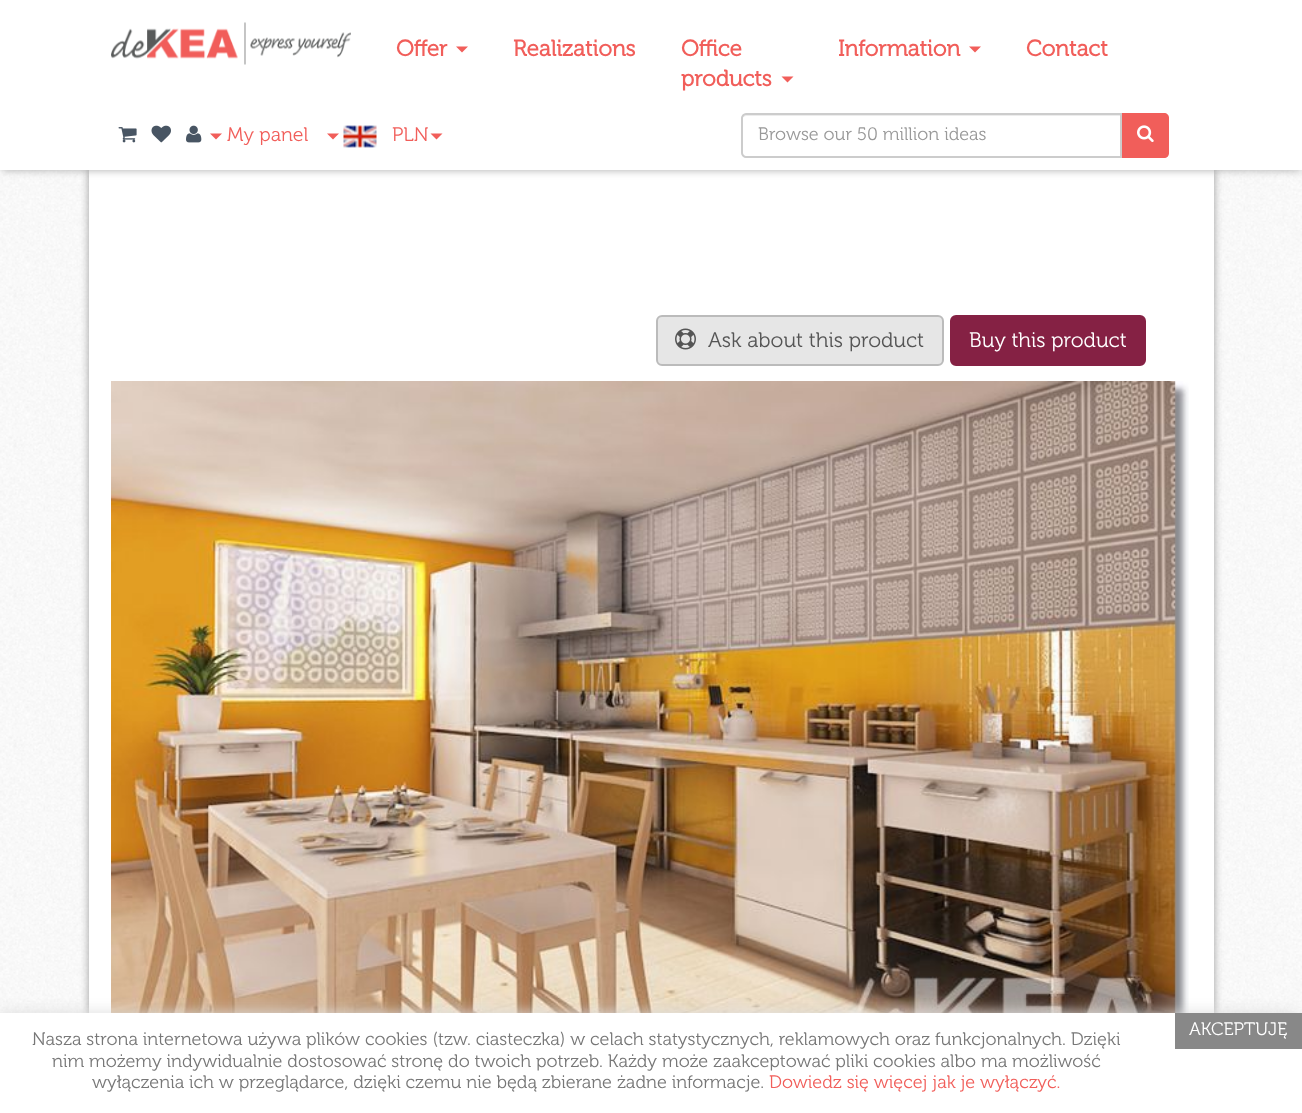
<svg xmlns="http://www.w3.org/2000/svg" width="1302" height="1113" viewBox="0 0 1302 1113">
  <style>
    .t1 { font: bold 22.5px 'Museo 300'; fill: #f15e5a; }
    .t2 { font: 19.5px 'Museo 300'; fill: #f15e5a; }
    .t3 { font: 18px 'Museo 300'; fill: #999; }
    .t4 { font: 21px 'Museo 300'; fill: #555; }
    .t5 { font: 21px 'Museo 300'; fill: #fff; }
    .t6 { font: 18px 'Museo 300'; fill: #777; }
    .t7 { font: 18px 'Museo 300'; fill: #f15e5a; }
    .t8 { font: 18px 'Museo 300'; fill: #fff; }
  </style>
  <rect width="100%" height="100%" fill="#fff"/>
  <image x="0" y="170" width="1302" height="843" href="images/1.png"/>
  <rect x="89" y="8" width="1110" height="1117" fill="#999" filter="blur(4px)"/>
  <rect x="104" y="8" width="1110" height="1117" fill="#999" filter="blur(4px)"/>
  <rect x="89" y="170" width="1125" height="843" fill="#fff"/>
  <rect x="2" y="3" width="1299" height="167" fill="#aaa" filter="blur(4px)"/>
  <rect x="0" y="0" width="1302" height="170" fill="#fff"/>
  <image x="111" y="22" width="240" height="43" href="images/2.png"/>
  <text x="396" y="56" class="t1">Offer</text>
  <path d="M456 46.5H468L462 52.5Z" fill="#f15e5a"/>
  <text x="513" y="56" class="t1">Realizations</text>
  <text x="681" y="56" class="t1">Office</text>
  <text x="681" y="86" class="t1">products</text>
  <path d="M781.5 76.5H793.5L787.5 82.5Z" fill="#f15e5a"/>
  <text x="838" y="56" class="t1">Information</text>
  <path d="M969 46.5H981L975 52.5Z" fill="#f15e5a"/>
  <text x="1026" y="56" class="t1">Contact</text>
  <image x="118" y="127" width="19" height="16" href="images/3.png"/>
  <image x="151" y="125" width="20" height="18" href="images/4.png"/>
  <image x="186" y="125" width="16" height="18" href="images/5.png"/>
  <path d="M210 133.5H222L216 139.5Z" fill="#f15e5a"/>
  <text x="227" y="141" class="t2">My panel</text>
  <path d="M327 133.5H339L333 139.5Z" fill="#f15e5a"/>
  <image x="343" y="125" width="34" height="23" href="images/6.png"/>
  <text x="392" y="141" class="t2">PLN</text>
  <path d="M430.5 133.5H442.5L436.5 139.5Z" fill="#f15e5a"/>
  <path d="M746 116H1120V156H1121V114H746C744 114 743 115 743 117Z" fill="#ececec"/>
  <path d="M746 114H1121V157H746C744 157 742 155 742 153V118C742 116 744 114 746 114Z" fill="none" stroke="#ccc" stroke-width="2"/>
  <text x="758" y="140" class="t3">Browse our 50 million ideas</text>
  <path d="M1122 113H1164C1167 113 1169 115 1169 118V153C1169 156 1167 158 1164 158H1122Z" fill="#f15e5a"/>
  <image x="1137" y="125" width="17" height="17" href="images/7.png"/>
  <rect x="657" y="316" width="286" height="49" rx="5" fill="#e6e6e6" stroke="#bbb" stroke-width="2"/>
  <image x="675" y="328" width="21" height="22" href="images/8.png"/>
  <text x="708" y="347" class="t4">Ask about this product</text>
  <rect x="951" y="316" width="194" height="49" rx="5" fill="#852144" stroke="#852144" stroke-width="2"/>
  <text x="969" y="347" class="t5">Buy this product</text>
  <image x="111" y="381" width="1078" height="632" href="images/9.png"/>
  <rect x="-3" y="1013" width="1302" height="100" fill="#ddd" filter="blur(7.5px)"/>
  <rect x="0" y="1013" width="1302" height="100" fill="#fff"/>
  <text x="32" y="1045" class="t6">Nasza strona internetowa używa plików cookies (tzw. ciasteczka) w celach statystycznych, reklamowych oraz funkcjonalnych. Dzięki</text>
  <text x="52" y="1067" class="t6">nim możemy indywidualnie dostosować stronę do twoich potrzeb. Każdy może zaakceptować pliki cookies albo ma możliwość</text>
  <text x="92" y="1088" class="t6">wyłączenia ich w przeglądarce, dzięki czemu nie będą zbierane żadne informacje.</text>
  <text x="769" y="1088" class="t7">Dowiedz się więcej jak je wyłączyć.</text>
  <rect x="1175" y="1013" width="127" height="36" fill="#888"/>
  <text x="1189" y="1035" class="t8">AKCEPTUJĘ</text>
</svg>
